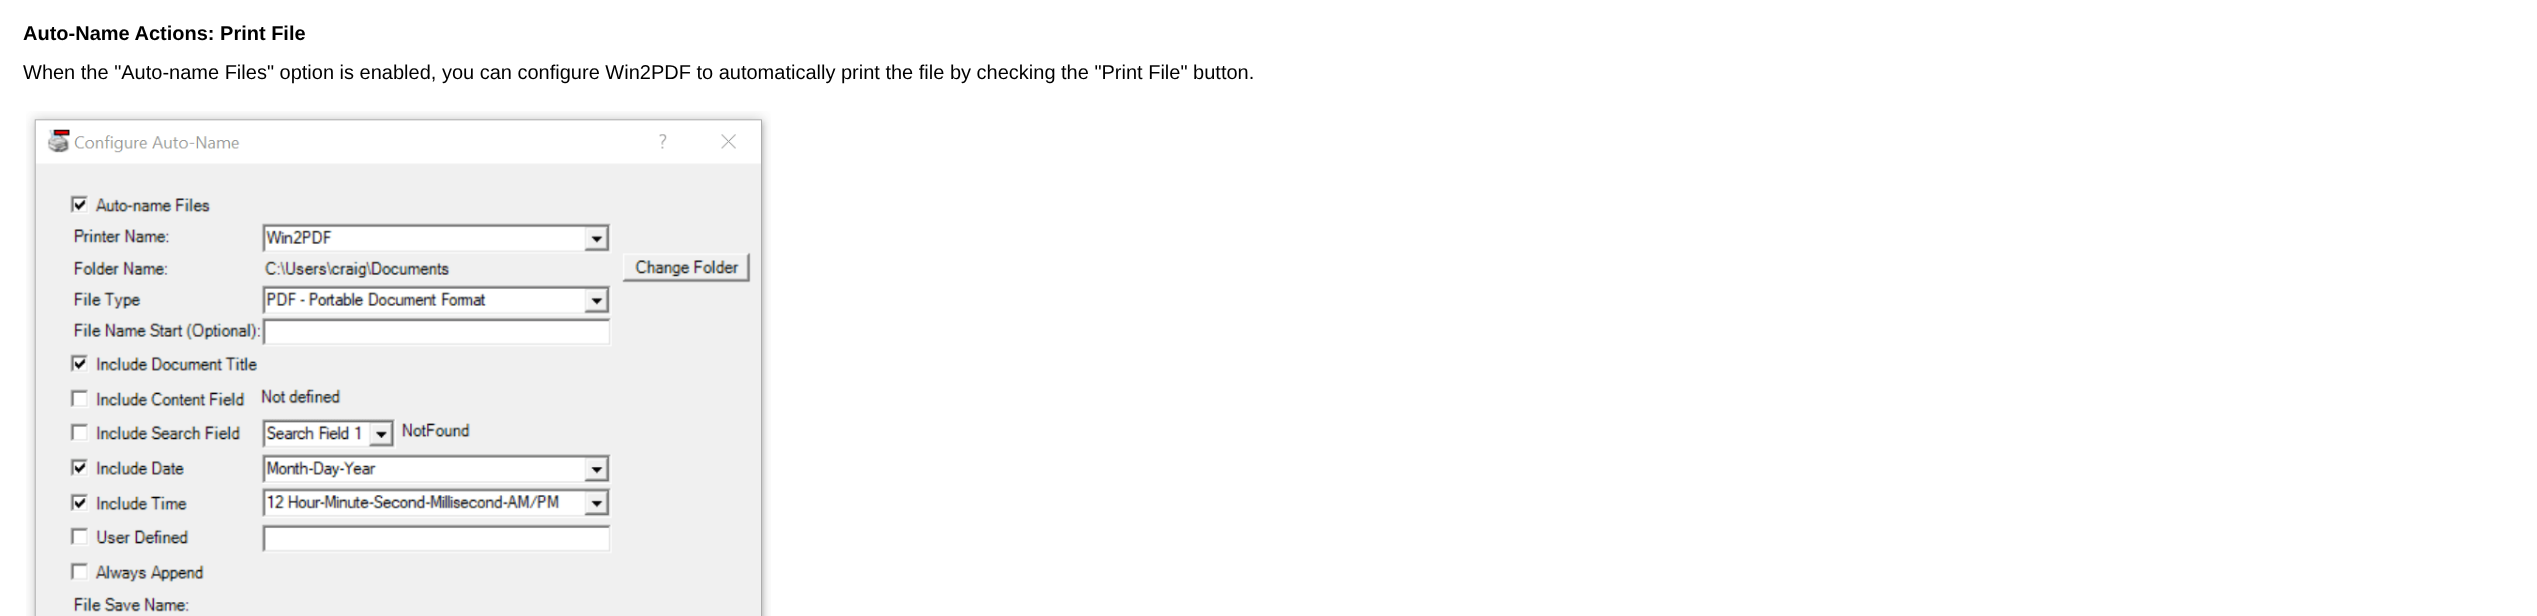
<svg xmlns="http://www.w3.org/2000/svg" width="2537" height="616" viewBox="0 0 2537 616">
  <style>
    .t1 { font: bold 20px Liberation Sans; fill: #000; }
    .t2 { font: 20px Liberation Sans; fill: #000; }
  </style>
  <rect width="100%" height="100%" fill="#fff"/>
  <text x="23" y="40" class="t1">Auto-Name Actions: Print File</text>
  <text x="23" y="79" class="t2">When the "Auto-name Files" option is enabled, you can configure Win2PDF to automatically print the file by checking the "Print File" button.</text>
  <image x="26" y="111" width="745" height="505" href="images/1.png"/>
</svg>
